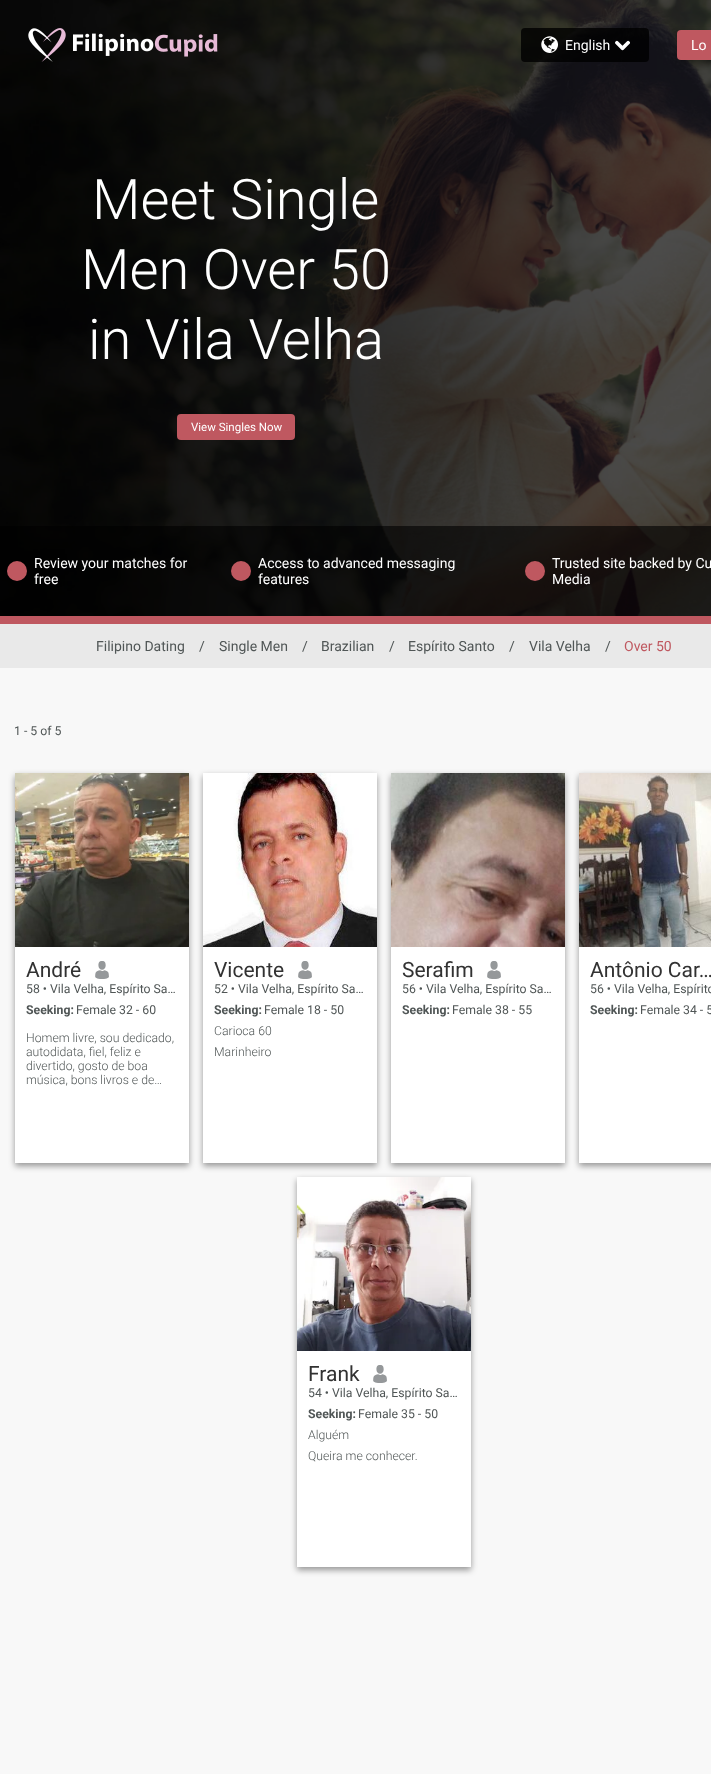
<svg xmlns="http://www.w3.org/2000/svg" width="711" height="1774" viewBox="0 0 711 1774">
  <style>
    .t1 { font: 14px Roboto; fill: #fff; }
    .t2 { font: 300 56px Roboto; fill: #fff; }
    .t3 { font: 11.5px Roboto; fill: #fff; }
    .t4 { font: 14px Roboto; fill: #505656; }
    .t5 { font: 14px Roboto; fill: #bf5860; }
    .t6 { font: 12.25px Roboto; fill: #505656; }
    .t7 { font: 21px Roboto; fill: #323232; }
    .t8 { font: bold 12.25px Roboto; fill: #505656; }
    .t9 { font: 300 12.25px Roboto; fill: #505656; }
  </style>
  <rect width="100%" height="100%" fill="#f8f8f8"/>
  <image x="0" y="0" width="711" height="616" href="images/5.png"/>
  <image x="28" y="28" width="38" height="34" href="images/1.png"/>
  <image x="73" y="33" width="145" height="24" href="images/2.png"/>
  <rect x="521" y="28" width="128" height="34" rx="4" fill="#000000cc"/>
  <image x="541" y="36" width="17" height="17" href="images/3.png"/>
  <text x="565" y="50" class="t1">English</text>
  <image x="615" y="40" width="15" height="11" href="images/4.png"/>
  <rect x="677" y="33" width="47" height="30" rx="4" fill="#00000066" filter="blur(3px)"/>
  <rect x="677" y="30" width="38" height="30" rx="4" fill="#bf5860"/>
  <text x="691" y="50" class="t1">Lo</text>
  <text x="92" y="219" class="t2">Meet Single</text>
  <text x="81" y="289" class="t2">Men Over 50</text>
  <text x="88" y="359" class="t2">in Vila Velha</text>
  <rect x="177" y="414" width="118" height="26" rx="4" fill="#bf5860"/>
  <text x="191" y="431" class="t3">View Singles Now</text>
  <rect x="0" y="526" width="711" height="90" fill="#00000099"/>
  <circle cx="17" cy="571" r="10" fill="#bf5860"/>
  <text x="34" y="568" class="t1">Review your matches for</text>
  <text x="34" y="584" class="t1">free</text>
  <circle cx="241" cy="571" r="10" fill="#bf5860"/>
  <text x="258" y="568" class="t1">Access to advanced messaging</text>
  <text x="258" y="584" class="t1">features</text>
  <circle cx="535" cy="571" r="10" fill="#bf5860"/>
  <text x="552" y="568" class="t1">Trusted site backed by Cu</text>
  <text x="552" y="584" class="t1">Media</text>
  <rect x="0" y="616" width="711" height="8" fill="#bf5860"/>
  <rect x="0" y="624" width="711" height="44" fill="#e9e9e9"/>
  <text x="96" y="651" class="t4">Filipino Dating</text>
  <text x="199" y="651" class="t4">/</text>
  <text x="219" y="651" class="t4">Single Men</text>
  <text x="302" y="651" class="t4">/</text>
  <text x="321" y="651" class="t4">Brazilian</text>
  <text x="389" y="651" class="t4">/</text>
  <text x="408" y="651" class="t4">Espírito Santo</text>
  <text x="509" y="651" class="t4">/</text>
  <text x="529" y="651" class="t4">Vila Velha</text>
  <text x="605" y="651" class="t4">/</text>
  <text x="624" y="651" class="t5">Over 50</text>
  <text x="14" y="735" class="t6">1 - 5 of 5</text>
  <rect x="15" y="776" width="174" height="390" fill="#00000066" filter="blur(3px)"/>
  <rect x="15" y="947" width="174" height="216" fill="#fff"/>
  <image x="15" y="773" width="174" height="174" href="images/6.png"/>
  <text x="26" y="977" class="t7">André</text>
  <image x="95" y="961" width="14" height="18" href="images/7.png"/>
  <text x="26" y="993" class="t6">58 • Vila Velha, Espírito Sa…</text>
  <text x="26" y="1014" class="t8">Seeking:</text>
  <text x="76" y="1014" class="t6">Female 32 - 60</text>
  <text x="26" y="1042" class="t9">Homem livre, sou dedicado,</text>
  <text x="26" y="1056" class="t9">autodidata, fiel, feliz e</text>
  <text x="26" y="1070" class="t9">divertido, gosto de boa</text>
  <text x="26" y="1084" class="t9">música, bons livros e de…</text>
  <rect x="203" y="776" width="174" height="390" fill="#00000066" filter="blur(3px)"/>
  <rect x="203" y="947" width="174" height="216" fill="#fff"/>
  <image x="203" y="773" width="174" height="174" href="images/8.png"/>
  <text x="214" y="977" class="t7">Vicente</text>
  <image x="298" y="961" width="14" height="18" href="images/7.png"/>
  <text x="214" y="993" class="t6">52 • Vila Velha, Espírito Sa…</text>
  <text x="214" y="1014" class="t8">Seeking:</text>
  <text x="264" y="1014" class="t6">Female 18 - 50</text>
  <text x="214" y="1035" class="t9">Carioca 60</text>
  <text x="214" y="1056" class="t9">Marinheiro</text>
  <rect x="391" y="776" width="174" height="390" fill="#00000066" filter="blur(3px)"/>
  <rect x="391" y="947" width="174" height="216" fill="#fff"/>
  <image x="391" y="773" width="174" height="174" href="images/9.png"/>
  <text x="402" y="977" class="t7">Serafim</text>
  <image x="487" y="961" width="14" height="18" href="images/7.png"/>
  <text x="402" y="993" class="t6">56 • Vila Velha, Espírito Sa…</text>
  <text x="402" y="1014" class="t8">Seeking:</text>
  <text x="452" y="1014" class="t6">Female 38 - 55</text>
  <rect x="579" y="776" width="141" height="390" fill="#00000066" filter="blur(3px)"/>
  <rect x="579" y="947" width="132" height="216" fill="#fff"/>
  <image x="579" y="773" width="132" height="174" href="images/10.png"/>
  <text x="590" y="977" class="t7">Antônio Car…</text>
  <text x="590" y="993" class="t6">56 • Vila Velha, Espírito</text>
  <text x="590" y="1014" class="t8">Seeking:</text>
  <text x="640" y="1014" class="t6">Female 34 - 5</text>
  <rect x="297" y="1180" width="174" height="390" fill="#00000066" filter="blur(3px)"/>
  <rect x="297" y="1351" width="174" height="216" fill="#fff"/>
  <image x="297" y="1177" width="174" height="174" href="images/11.png"/>
  <text x="308" y="1381" class="t7">Frank</text>
  <image x="373" y="1365" width="14" height="18" href="images/7.png"/>
  <text x="308" y="1397" class="t6">54 • Vila Velha, Espírito Sa…</text>
  <text x="308" y="1418" class="t8">Seeking:</text>
  <text x="358" y="1418" class="t6">Female 35 - 50</text>
  <text x="308" y="1439" class="t9">Alguém</text>
  <text x="308" y="1460" class="t9">Queira me conhecer.</text>
</svg>
